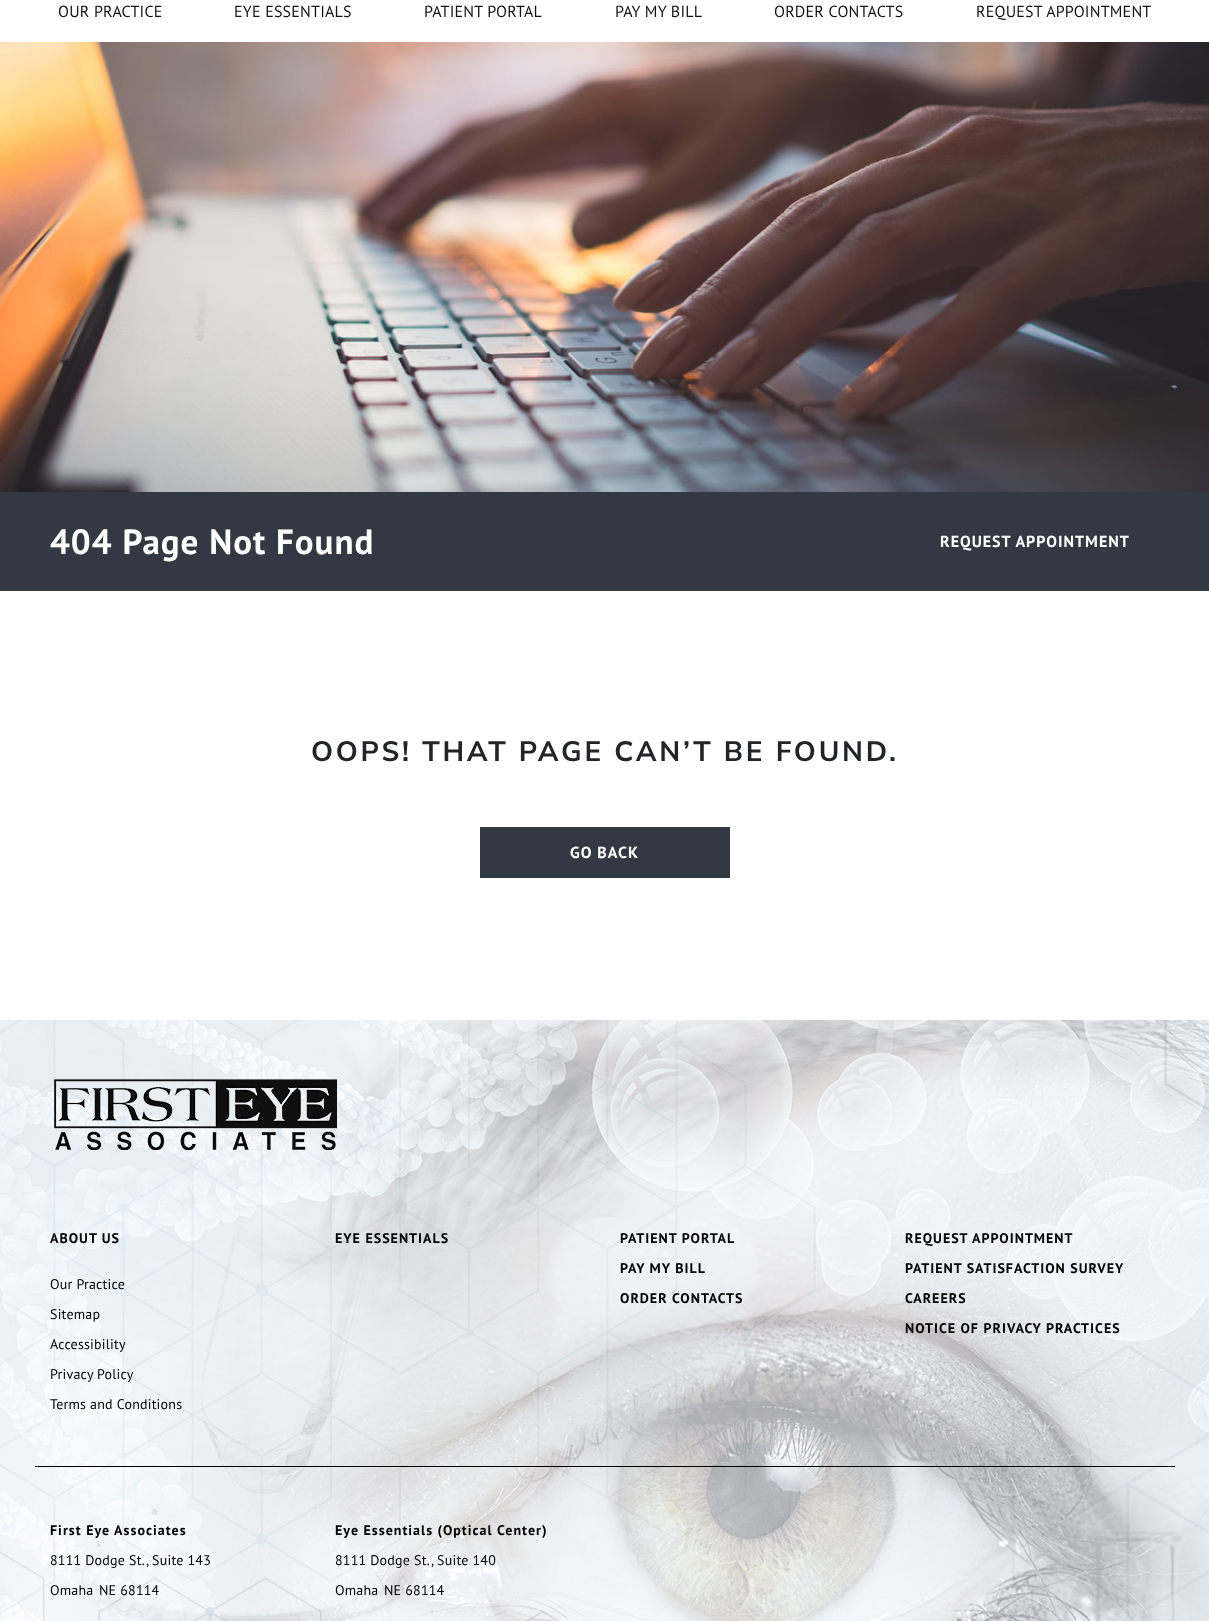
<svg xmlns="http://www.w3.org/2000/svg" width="1209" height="1621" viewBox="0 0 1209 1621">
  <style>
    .t1 { font: 16px PT Sans; letter-spacing: 0.2px; fill: #131416; }
    .t2 { font: bold 35px PT Sans; letter-spacing: 1px; fill: #fff; }
    .t3 { font: bold 16px PT Sans; letter-spacing: 1px; fill: #fff; }
    .t4 { font: 200 28px Nunito Sans; letter-spacing: 2.8px; fill: #212529; }
    .t5 { font: bold 14px PT Sans; letter-spacing: 1px; fill: #000; }
    .t6 { font: 14px PT Sans; letter-spacing: 0.2px; fill: #000; }
  </style>
  <rect width="100%" height="100%" fill="#fff"/>
  <text x="58" y="17" class="t1">OUR PRACTICE</text>
  <text x="234" y="17" class="t1">EYE ESSENTIALS</text>
  <text x="424" y="17" class="t1">PATIENT PORTAL</text>
  <text x="615" y="17" class="t1">PAY MY BILL</text>
  <text x="774" y="17" class="t1">ORDER CONTACTS</text>
  <text x="976" y="17" class="t1">REQUEST APPOINTMENT</text>
  <image x="0" y="42" width="1209" height="450" href="images/1.png"/>
  <rect x="0" y="492" width="1209" height="99" fill="#333942"/>
  <text x="50" y="554" class="t2">404 Page Not Found</text>
  <text x="940" y="547" class="t3">REQUEST APPOINTMENT</text>
  <text x="311" y="761" class="t4">OOPS! THAT PAGE CAN’T BE FOUND.</text>
  <rect x="480" y="827" width="250" height="51" fill="#333942"/>
  <text x="570" y="858" class="t3">GO BACK</text>
  <image x="0" y="1020" width="1209" height="601" href="images/2.png"/>
  <image x="54" y="1079" width="283" height="71" href="images/3.png"/>
  <text x="50" y="1243" class="t5">ABOUT US</text>
  <text x="50" y="1289" class="t6">Our Practice</text>
  <text x="50" y="1319" class="t6">Sitemap</text>
  <text x="50" y="1349" class="t6">Accessibility</text>
  <text x="50" y="1379" class="t6">Privacy Policy</text>
  <text x="50" y="1409" class="t6">Terms and Conditions</text>
  <text x="335" y="1243" class="t5">EYE ESSENTIALS</text>
  <text x="620" y="1243" class="t5">PATIENT PORTAL</text>
  <text x="620" y="1273" class="t5">PAY MY BILL</text>
  <text x="620" y="1303" class="t5">ORDER CONTACTS</text>
  <text x="905" y="1243" class="t5">REQUEST APPOINTMENT</text>
  <text x="905" y="1273" class="t5">PATIENT SATISFACTION SURVEY</text>
  <text x="905" y="1303" class="t5">CAREERS</text>
  <text x="905" y="1333" class="t5">NOTICE OF PRIVACY PRACTICES</text>
  <rect x="35" y="1466" width="1140" height="1" fill="#000"/>
  <text x="50" y="1535" class="t5">First Eye Associates</text>
  <text x="50" y="1565" class="t6">8111 Dodge St., Suite 143</text>
  <text x="50" y="1595" class="t6">Omaha</text>
  <text x="99" y="1595" class="t6">NE 68114</text>
  <text x="335" y="1535" class="t5">Eye Essentials (Optical Center)</text>
  <text x="335" y="1565" class="t6">8111 Dodge St., Suite 140</text>
  <text x="335" y="1595" class="t6">Omaha</text>
  <text x="384" y="1595" class="t6">NE 68114</text>
</svg>
